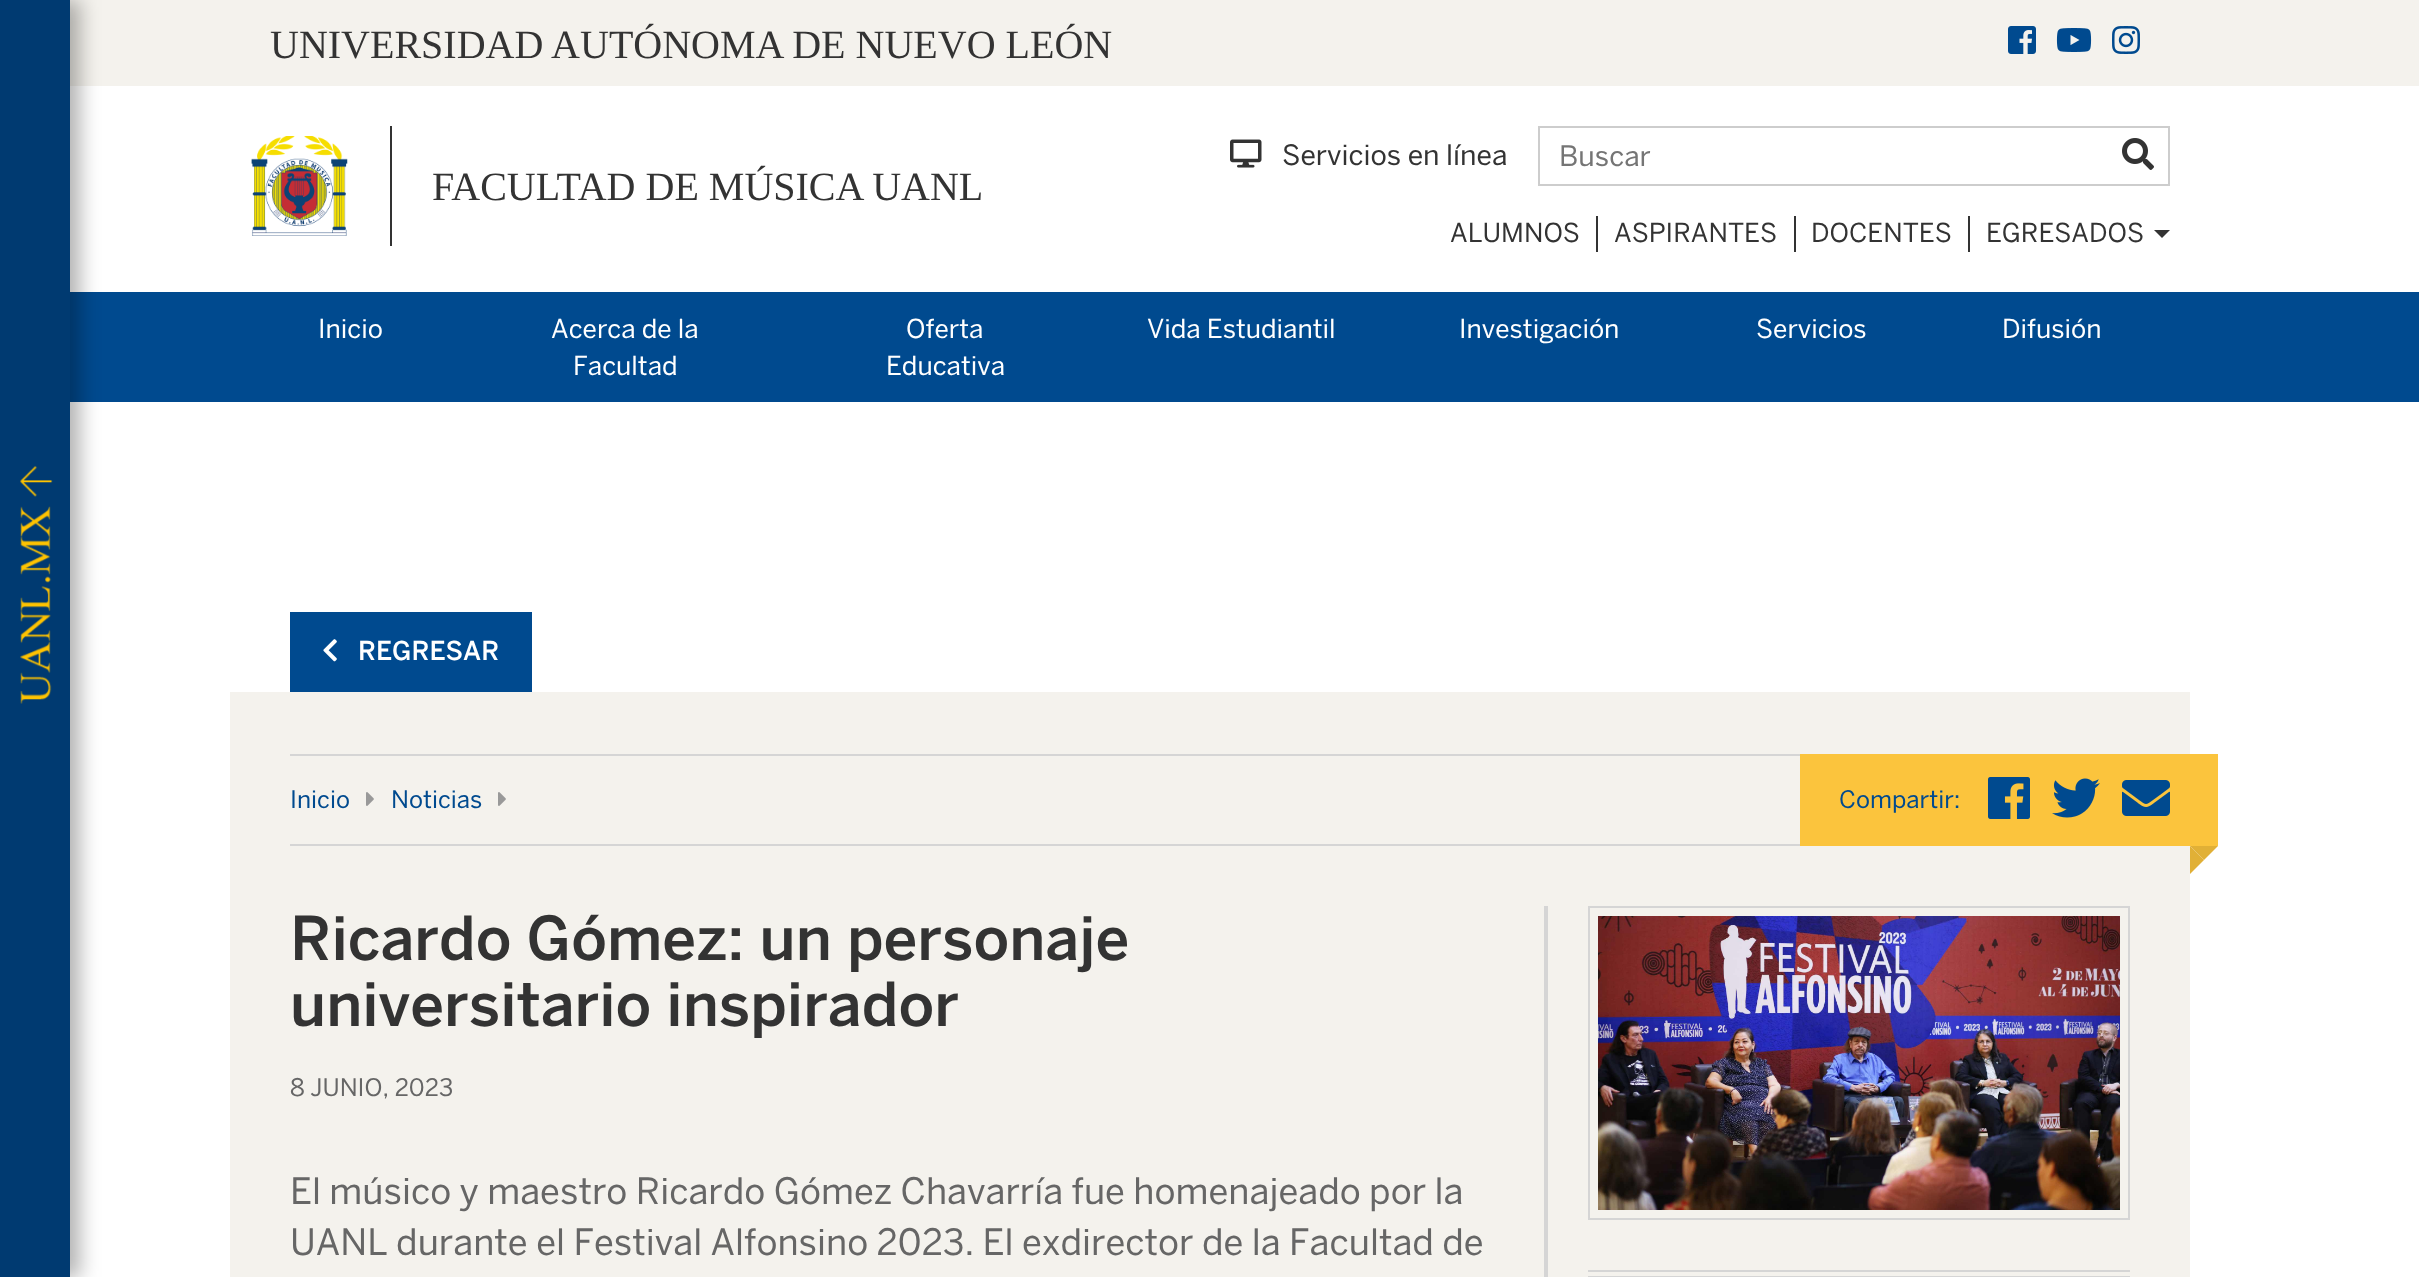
<svg xmlns="http://www.w3.org/2000/svg" width="2419" height="1277" viewBox="0 0 2419 1277">
  <style>
    .t1 { font: 40px Liberation Serif; fill: #333; }
    .t2 { font: 28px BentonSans; fill: #333; }
    .t3 { font: 28px BentonSans; fill: #757575; }
    .t4 { font: 26px BentonSans; fill: #333; }
    .t5 { font: 26px BentonSans; fill: #fff; }
    .t6 { font: 500 26px BentonSans; fill: #fff; }
    .t7 { font: 24px BentonSans; fill: #004a8f; }
    .t8 { font: 500 60px BentonSans; fill: #333; }
    .t9 { font: 24px BentonSans; fill: #666; }
    .t10 { font: 36px BentonSans; fill: #666; }
  </style>
  <rect width="100%" height="100%" fill="#fff"/>
  <rect x="70" y="0" width="2349" height="86" fill="#f4f2ed"/>
  <rect x="70" y="292" width="2349" height="110" fill="#004a8f"/>
  <rect x="10" y="0" width="70" height="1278" fill="#0000004d" filter="blur(10px)"/>
  <rect x="0" y="0" width="70" height="1277" fill="#003a71"/>
  <image x="20" y="466" width="33" height="238" href="images/1.png"/>
  <text x="270" y="58" class="t1">UNIVERSIDAD AUTÓNOMA DE NUEVO LEÓN</text>
  <image x="2008" y="26" width="28" height="28" href="images/2.png"/>
  <image x="2056" y="28" width="36" height="24" href="images/3.png"/>
  <image x="2112" y="26" width="28" height="28" href="images/4.png"/>
  <image x="251" y="136" width="97" height="100" href="images/5.png"/>
  <rect x="390" y="126" width="2" height="120" fill="#333"/>
  <text x="432" y="200" class="t1">FACULTAD DE MÚSICA UANL</text>
  <image x="1230" y="139" width="32" height="29" href="images/6.png"/>
  <text x="1282" y="165" class="t2">Servicios en línea</text>
  <rect x="1539" y="127" width="630" height="58" fill="none" stroke="#cdcdcd" stroke-width="2"/>
  <text x="1559" y="166" class="t3">Buscar</text>
  <image x="2122" y="138" width="32" height="32" href="images/7.png"/>
  <text x="1450" y="242" class="t4">ALUMNOS</text>
  <rect x="1596" y="216" width="2" height="36" fill="#333"/>
  <text x="1614" y="242" class="t4">ASPIRANTES</text>
  <rect x="1794" y="216" width="2" height="36" fill="#333"/>
  <text x="1811" y="242" class="t4">DOCENTES</text>
  <rect x="1968" y="216" width="2" height="36" fill="#333"/>
  <text x="1986" y="242" class="t4">EGRESADOS</text>
  <path d="M2154 230H2170L2162 238Z" fill="#333"/>
  <text x="318" y="338" class="t5">Inicio</text>
  <text x="551" y="338" class="t5">Acerca de la</text>
  <text x="573" y="375" class="t5">Facultad</text>
  <text x="906" y="338" class="t5">Oferta</text>
  <text x="886" y="375" class="t5">Educativa</text>
  <text x="1147" y="338" class="t5">Vida Estudiantil</text>
  <text x="1459" y="338" class="t5">Investigación</text>
  <text x="1756" y="338" class="t5">Servicios</text>
  <text x="2002" y="338" class="t5">Difusión</text>
  <rect x="230" y="692" width="1960" height="585" fill="#f4f2ed"/>
  <rect x="290" y="612" width="242" height="80" fill="#004a8f"/>
  <image x="323" y="639" width="14" height="23" href="images/8.png"/>
  <text x="358" y="660" class="t6">REGRESAR</text>
  <rect x="290" y="754" width="1510" height="2" fill="#d5d5d5"/>
  <rect x="290" y="844" width="1510" height="2" fill="#d5d5d5"/>
  <text x="290" y="808" class="t7">Inicio</text>
  <image x="366" y="792" width="8" height="14" href="images/9.png"/>
  <text x="391" y="808" class="t7">Noticias</text>
  <image x="498" y="792" width="8" height="14" href="images/9.png"/>
  <rect x="1800" y="754" width="418" height="92" fill="#fbc43d"/>
  <text x="1839" y="808" class="t7">Compartir:</text>
  <image x="1988" y="777" width="42" height="42" href="images/10.png"/>
  <image x="2052" y="778" width="48" height="40" href="images/11.png"/>
  <image x="2122" y="780" width="48" height="36" href="images/12.png"/>
  <path d="M2190 846H2218L2204 860Z" fill="#e1b036"/>
  <path d="M2190 874V846L2204 860Z" fill="#e1b036"/>
  <text x="290" y="960" class="t8">Ricardo Gómez: un personaje</text>
  <text x="290" y="1026" class="t8">universitario inspirador</text>
  <text x="290" y="1096" class="t9">8 JUNIO, 2023</text>
  <text x="290" y="1204" class="t10">El músico y maestro Ricardo Gómez Chavarría fue homenajeado por la</text>
  <text x="290" y="1255" class="t10">UANL durante el Festival Alfonsino 2023. El exdirector de la Facultad de</text>
  <rect x="1544" y="906" width="4" height="371" fill="#d5d5d5"/>
  <rect x="1589" y="907" width="540" height="312" fill="none" stroke="#d5d5d5" stroke-width="2"/>
  <image x="1598" y="916" width="522" height="294" href="images/13.png"/>
  <rect x="1588" y="1270" width="542" height="2" fill="#d5d5d5"/>
  <rect x="1588" y="1276" width="542" height="1" fill="#d5d5d5"/>
</svg>
